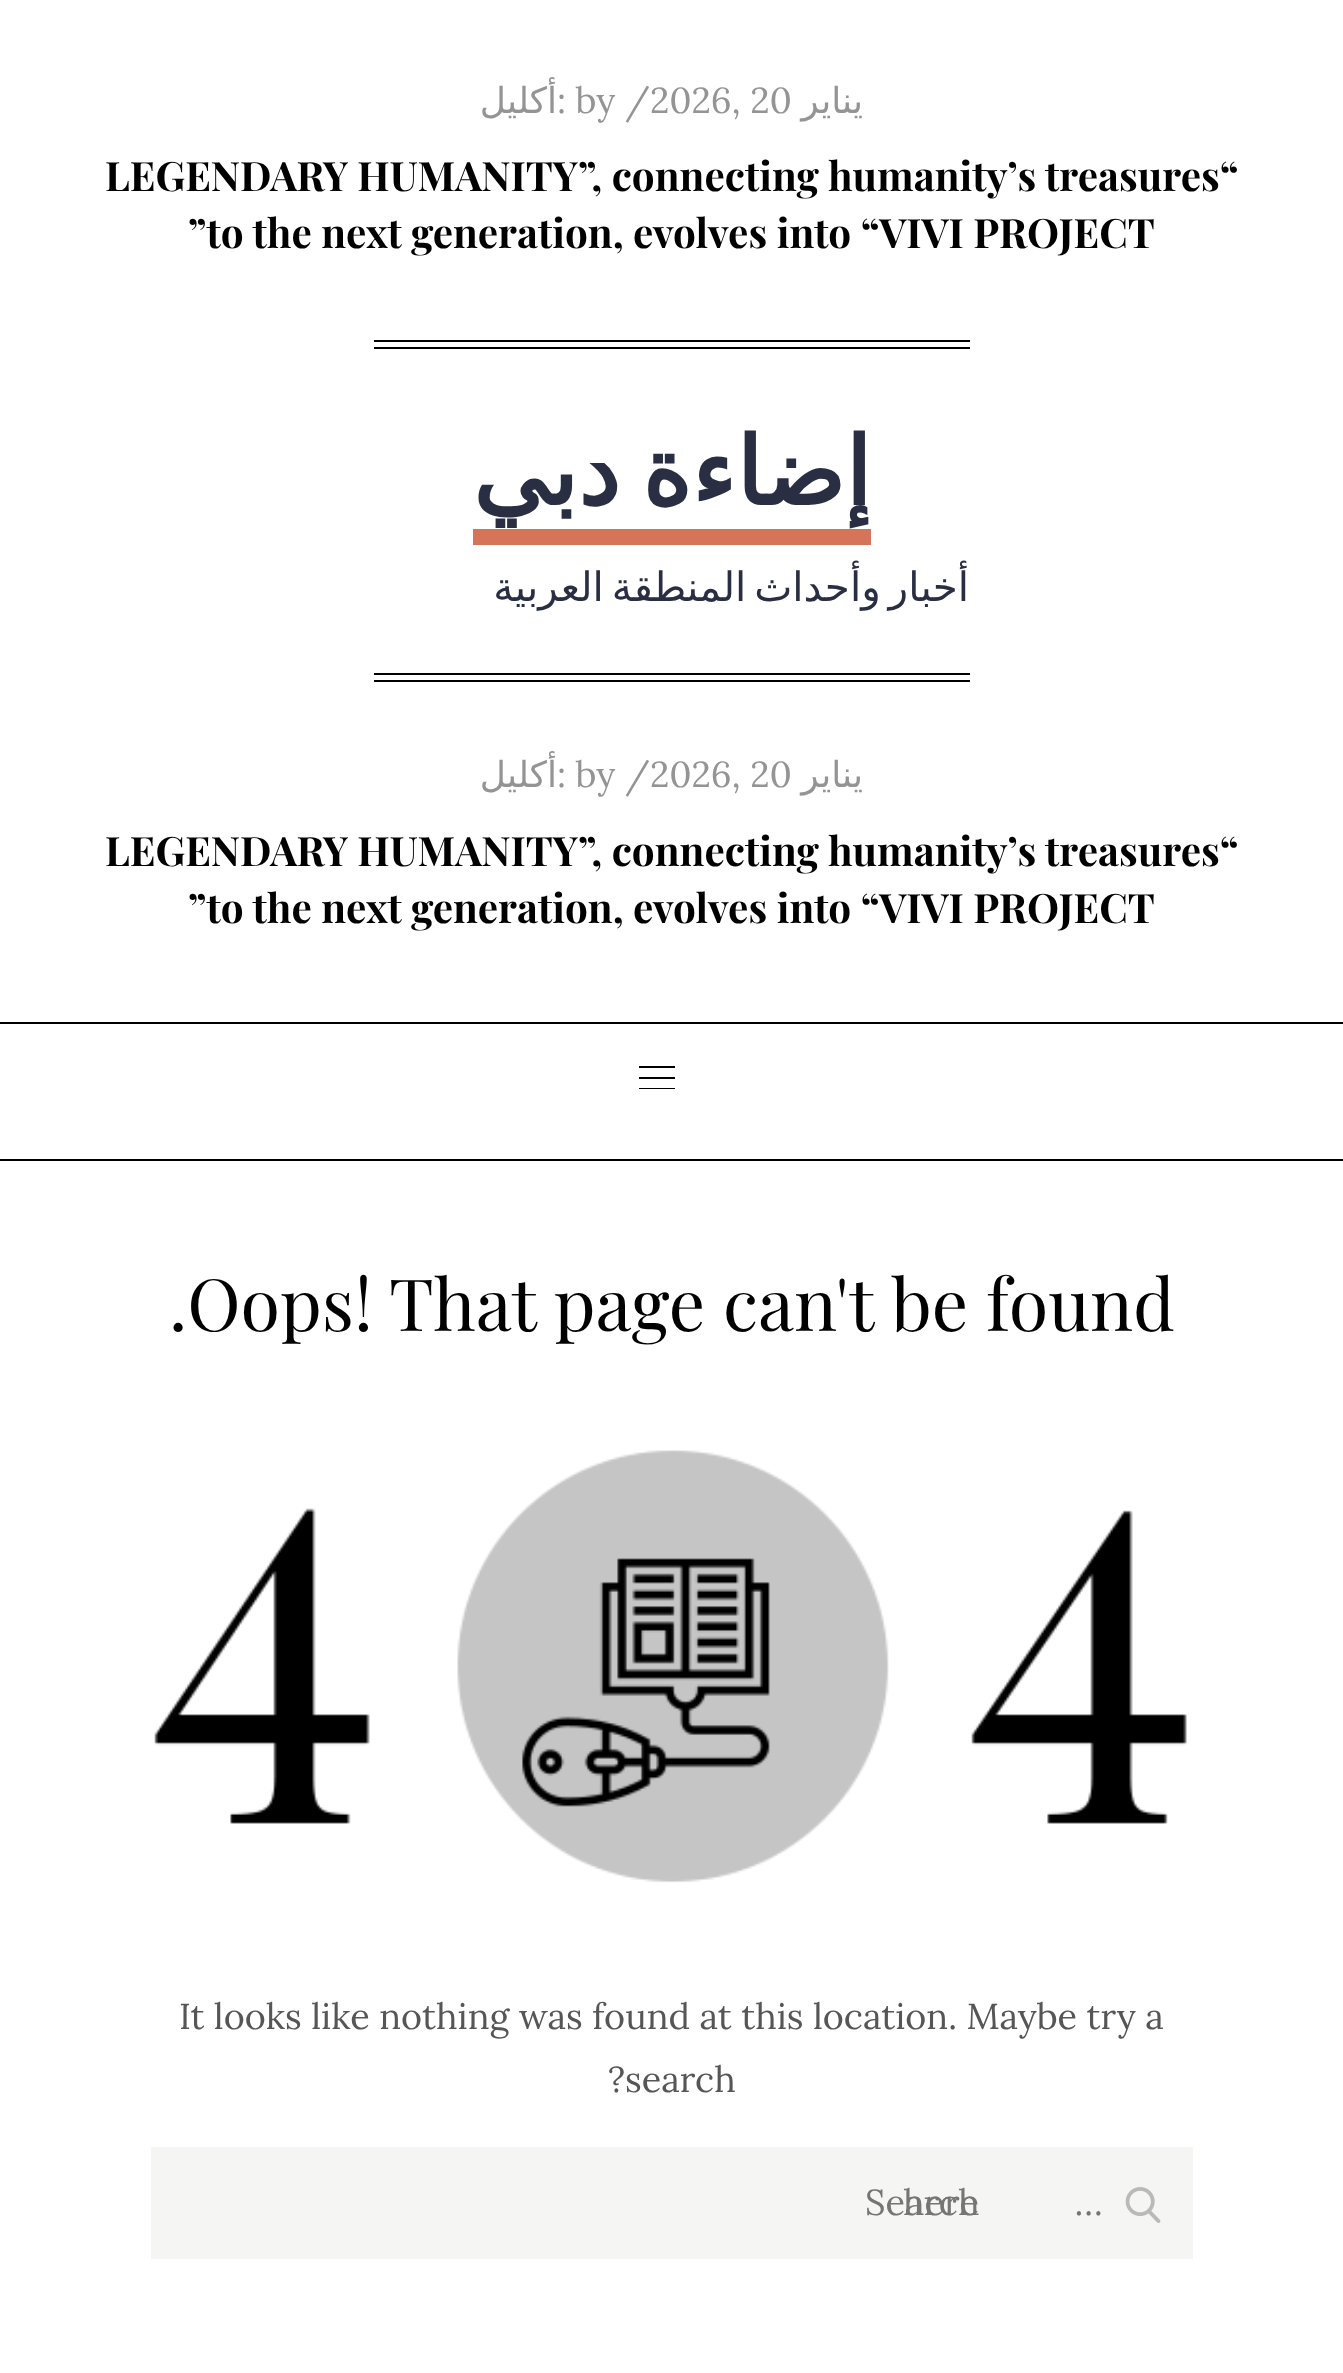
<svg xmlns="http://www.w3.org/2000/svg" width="1343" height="2373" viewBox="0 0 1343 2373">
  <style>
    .t1 { font: 36px DejaVu Sans; direction: rtl; fill: #949494; }
    .t2 { font: 36px Lora; fill: #949494; }
    .t3 { font: bold 40.5px Playfair Display; fill: #000; }
    .t4 { font: bold 94.5px DejaVu Sans; direction: rtl; fill: #2a2e43; }
    .t5 { font: 40.5px DejaVu Sans; letter-spacing: 2.25px; direction: rtl; fill: #2a2e43; }
    .t6 { font: 72px Playfair Display; fill: #000; }
    .t7 { font: 36px Lora; fill: #565656; }
    .t8 { font: 36px Lora; fill: #757575; }
  </style>
  <rect width="100%" height="100%" fill="#fff"/>
  <text x="557" y="113" class="t1">أكليل</text>
  <text x="557" y="113" class="t2">: by</text>
  <text x="625" y="113" class="t2">/</text>
  <text x="650" y="113" class="t2">2026, 20</text>
  <text x="863" y="113" class="t1">يناير</text>
  <text x="105" y="191" class="t3">LEGENDARY HUMANITY”, connecting humanity’s treasures“</text>
  <text x="188" y="248" class="t3">”to the next generation, evolves into “VIVI PROJECT</text>
  <rect x="374" y="347" width="596" height="2" fill="#000"/>
  <rect x="374" y="673" width="596" height="2" fill="#000"/>
  <rect x="374" y="340" width="596" height="2" fill="#000"/>
  <text x="871" y="505" word-spacing="-8" class="t4">إضاءة دبي</text>
  <rect x="473" y="529" width="398" height="16" fill="#d67459"/>
  <text x="969" y="601" word-spacing="-5" class="t5">أخبار وأحداث المنطقة العربية</text>
  <rect x="374" y="680" width="596" height="2" fill="#000"/>
  <text x="557" y="787" class="t1">أكليل</text>
  <text x="557" y="787" class="t2">: by</text>
  <text x="625" y="787" class="t2">/</text>
  <text x="650" y="787" class="t2">2026, 20</text>
  <text x="863" y="787" class="t1">يناير</text>
  <text x="105" y="866" class="t3">LEGENDARY HUMANITY”, connecting humanity’s treasures“</text>
  <text x="188" y="923" class="t3">”to the next generation, evolves into “VIVI PROJECT</text>
  <rect x="0" y="1022" width="1343" height="2" fill="#000"/>
  <rect x="0" y="1159" width="1343" height="2" fill="#000"/>
  <rect x="639" y="1066" width="36" height="2" fill="#000"/>
  <rect x="639" y="1077" width="36" height="2" fill="#000"/>
  <rect x="639" y="1088" width="36" height="1" fill="#000"/>
  <text x="169" y="1331" class="t6">.Oops! That page can't be found</text>
  <image x="154" y="1450" width="1033" height="433" href="images/1.png"/>
  <text x="179" y="2029" class="t7">It looks like nothing was found at this location. Maybe try a</text>
  <text x="608" y="2092" class="t7">?search</text>
  <rect x="151" y="2147" width="1042" height="112" fill="#f5f5f3"/>
  <text x="865" y="2215" class="t8">Search</text>
  <text x="903" y="2215" word-spacing="86" class="t8">here …</text>
  <image x="1125" y="2187" width="36" height="36" href="images/2.png"/>
</svg>
